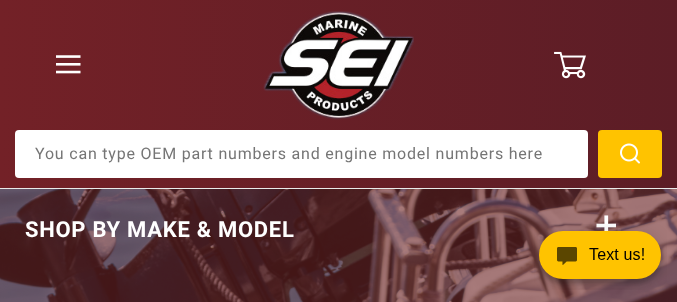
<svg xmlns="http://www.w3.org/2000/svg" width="677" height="302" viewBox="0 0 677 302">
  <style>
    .t1 { font: 16px Roboto; letter-spacing: 0.8px; fill: #757575; }
    .t2 { font: bold 22px Roboto; letter-spacing: 0.7px; fill: #fff; }
    .t3 { font: 40px Roboto; letter-spacing: 0.8px; fill: #fff; }
  </style>
  <defs>
    <linearGradient id="g1" gradientUnits="userSpaceOnUse" x1="677" y1="94" x2="0" y2="94"><stop offset="0" stop-color="#5c1d26"/><stop offset="1" stop-color="#732127"/></linearGradient>
  </defs>
  <rect width="100%" height="100%" fill="#fff"/>
  <rect x="0" y="0" width="677" height="188" fill="url(#g1)"/>
  <rect x="0" y="188" width="677" height="1" fill="#eaeaea"/>
  <image x="56" y="55" width="25" height="19" href="images/1.png"/>
  <image x="263" y="11" width="151" height="109" href="images/2.png"/>
  <image x="554" y="51" width="32" height="28" href="images/3.png"/>
  <rect x="15" y="130" width="573" height="48" rx="4" fill="#fff"/>
  <text x="35" y="159" class="t1">You can type OEM part numbers and engine model numbers here</text>
  <rect x="598" y="130" width="64" height="48" rx="4" fill="#ffc300"/>
  <image x="620" y="143" width="20" height="21" href="images/4.png"/>
  <image x="0" y="189" width="677" height="113" href="images/5.png"/>
  <text x="25" y="237" class="t2">SHOP BY MAKE &amp; MODEL</text>
  <text x="595" y="239" class="t3">+</text>
  <image x="534" y="224" width="133" height="66" href="images/6.png"/>
</svg>
